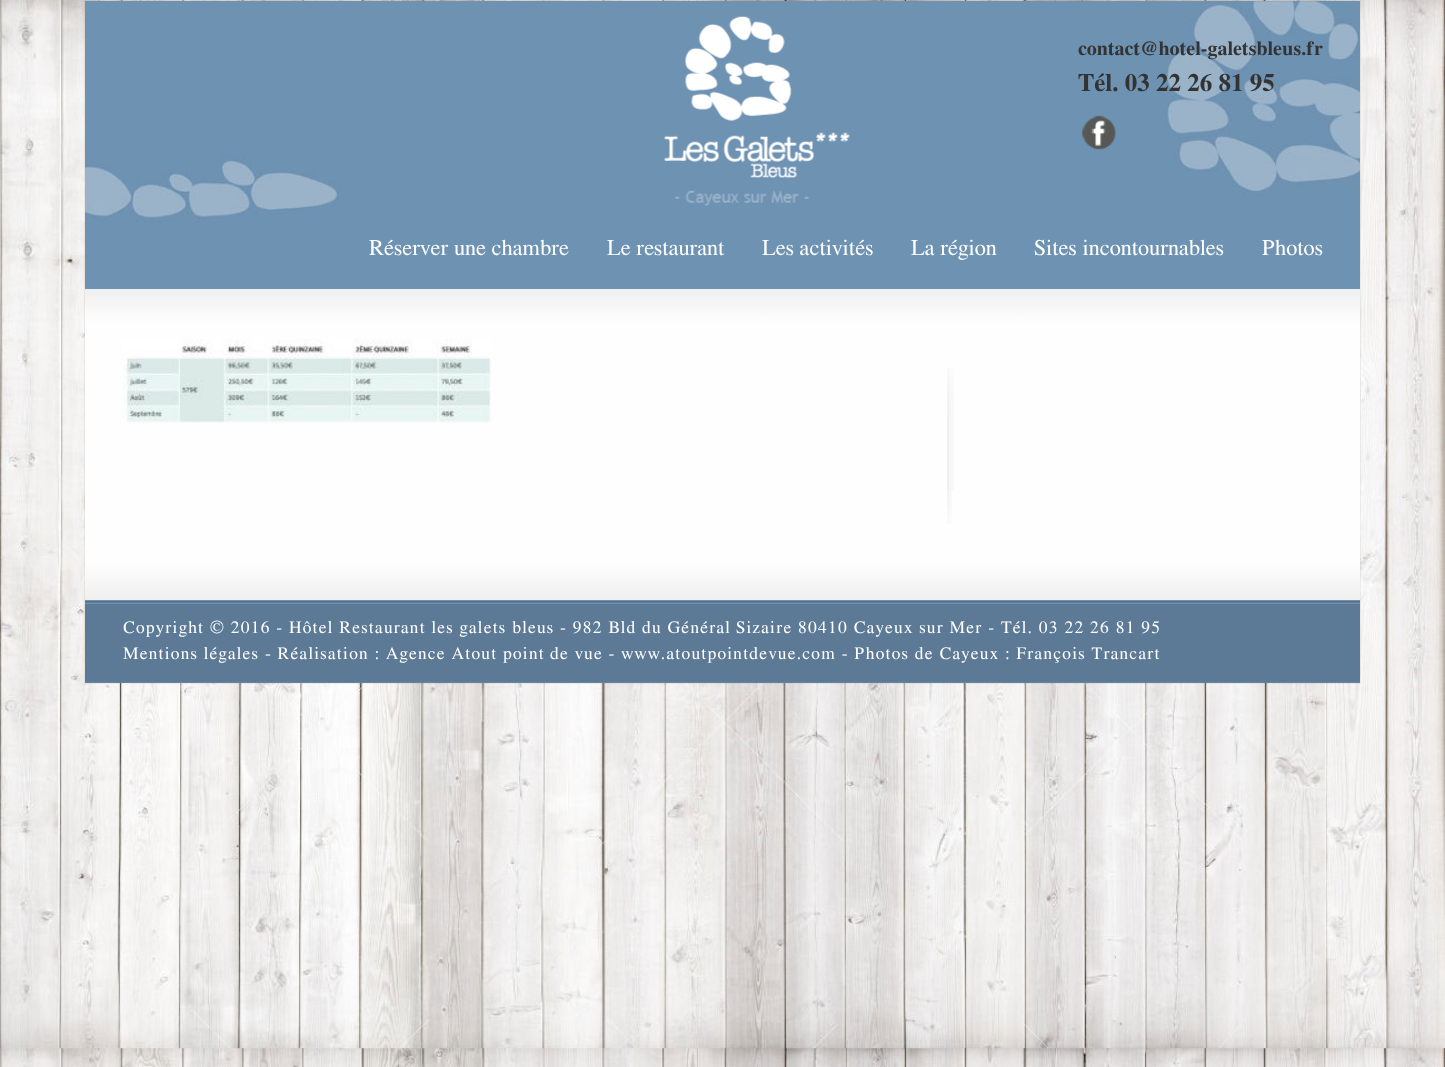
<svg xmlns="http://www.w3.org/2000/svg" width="1445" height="1067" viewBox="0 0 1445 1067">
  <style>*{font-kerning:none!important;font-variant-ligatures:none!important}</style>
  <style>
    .t1 { font: bold 20px FreeSerif; fill: #333; }
    .t2 { font: bold 25px FreeSerif; fill: #333; }
    .t3 { font: 22.5px FreeSerif; fill: #fff; }
    .t4 { font: 17.5px FreeSerif; letter-spacing: 1.25px; fill: #fff; }
  </style>
  <defs>
    <linearGradient id="g1" gradientUnits="userSpaceOnUse" x1="723" y1="289" x2="723" y2="323"><stop offset="0" stop-color="#efefef"/><stop offset="1" stop-color="#fefefe"/></linearGradient>
    <linearGradient id="g2" gradientUnits="userSpaceOnUse" x1="723" y1="562" x2="723" y2="600"><stop offset="0" stop-color="#fefefe"/><stop offset="1" stop-color="#efefef"/></linearGradient>
  </defs>
  <rect width="100%" height="100%" fill="#fff"/>
  <image x="0" y="0" width="1445" height="1067" href="images/1.png"/>
  <rect x="84.5" y="0.5" width="1276" height="683" fill="none" stroke="#0000000d"/>
  <rect x="85" y="1" width="1275" height="288" fill="#6e92b2"/>
  <image x="85" y="1" width="1275" height="222" href="images/2.png"/>
  <image x="664" y="16" width="186" height="190" href="images/3.png"/>
  <text x="1078" y="55" class="t1">contact@hotel-galetsbleus.fr</text>
  <text x="1078" y="91" class="t2">Tél. 03 22 26 81 95</text>
  <image x="1082" y="115" width="34" height="35" href="images/4.png"/>
  <text x="369" y="255" class="t3">Réserver une chambre</text>
  <text x="607" y="255" class="t3">Le restaurant</text>
  <text x="762" y="255" class="t3">Les activités</text>
  <text x="911" y="255" class="t3">La région</text>
  <text x="1034" y="255" class="t3">Sites incontournables</text>
  <text x="1262" y="255" class="t3">Photos</text>
  <rect x="85" y="323" width="1275" height="240" fill="#fefefe"/>
  <rect x="85" y="289" width="1275" height="34" fill="url(#g1)"/>
  <image x="122" y="339" width="370" height="85" href="images/5.png"/>
  <image x="947" y="368" width="7" height="123" href="images/6.png"/>
  <image x="947" y="491" width="5" height="33" href="images/7.png"/>
  <rect x="85" y="563" width="1275" height="37" fill="url(#g2)"/>
  <rect x="85" y="600" width="1275" height="83" fill="#6e92b2"/>
  <image x="85" y="601" width="1275" height="82" href="images/8.png"/>
  <text x="123" y="633" class="t4">Copyright © 2016 - Hôtel Restaurant les galets bleus - 982 Bld du Général</text>
  <text x="736" y="633" class="t4">Sizaire 80410 Cayeux sur Mer - Tél. 03 22 26 81 95</text>
  <text x="123" y="659" class="t4">Mentions légales - Réalisation : Agence Atout point</text>
  <text x="550" y="659" class="t4">de vue - www.atoutpointdevue.com - Photos de Cayeux : François Trancart</text>
</svg>
